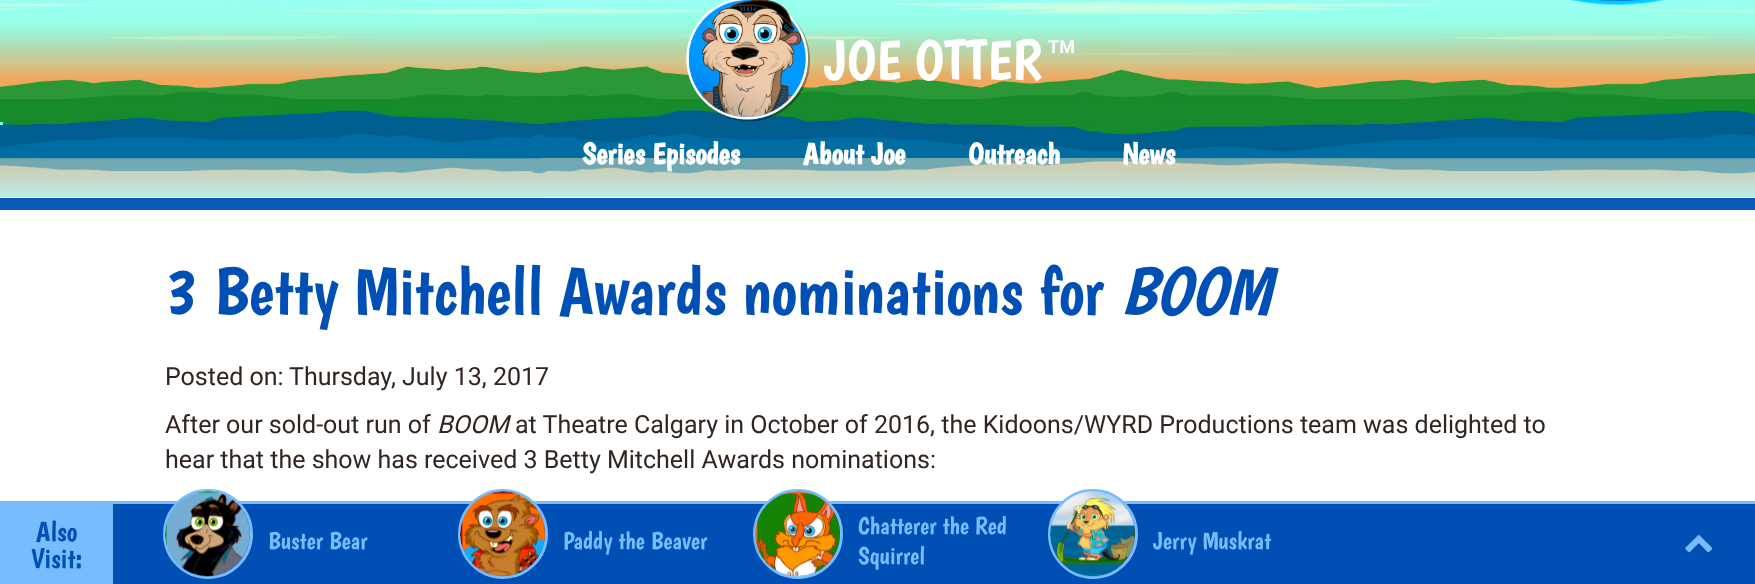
<svg xmlns="http://www.w3.org/2000/svg" width="1755" height="584" viewBox="0 0 1755 584">
  <style>
    .t1 { font: 56px Boogaloo; fill: #fff; }
    .t2 { font: bold 18px Roboto; fill: #fff; }
    .t3 { font: bold 30px Boogaloo; fill: #fff; }
    .t4 { font: 67.5px Boogaloo; fill: #004fb4; }
    .t5 { font: italic 67.5px Boogaloo; fill: #004fb4; }
    .t6 { font: 25px Roboto; fill: #31251f; }
    .t7 { font: italic 25px Roboto; fill: #31251f; }
    .t8 { font: 28px Boogaloo; fill: #004fb4; }
    .t9 { font: 24.5px Boogaloo; fill: #77bcff; }
  </style>
  <rect width="100%" height="100%" fill="#fff"/>
  <image x="0" y="0" width="1755" height="197" href="images/2.png"/>
  <image x="1570" y="0" width="95" height="5" href="images/1.png"/>
  <rect x="0" y="198" width="1755" height="12" fill="#0a58ba"/>
  <image x="686" y="0" width="124" height="122" href="images/3.png"/>
  <text x="824" y="79" class="t1">JOE OTTER</text>
  <text x="1048" y="53" class="t2">TM</text>
  <rect x="0" y="122" width="3" height="3" fill="#71f4f9"/>
  <text x="582" y="164" class="t3">Series Episodes</text>
  <text x="803" y="164" class="t3">About Joe</text>
  <text x="968" y="164" class="t3">Outreach</text>
  <text x="1122" y="164" class="t3">News</text>
  <text x="165" y="314" class="t4">3 Betty Mitchell Awards nominations for</text>
  <text x="1120" y="314" class="t5">BOOM</text>
  <text x="165" y="385" class="t6">Posted on:</text>
  <text x="289" y="385" class="t6">Thursday, July 13, 2017</text>
  <text x="165" y="433" class="t6">After our sold-out run of</text>
  <text x="437" y="433" class="t7">BOOM</text>
  <text x="515" y="433" class="t6">at Theatre Calgary in October of 2016, the Kidoons/WYRD Productions team was delighted to</text>
  <text x="165" y="468" class="t6">hear that the show has received 3 Betty Mitchell Awards nominations:</text>
  <rect x="113" y="504" width="1642" height="80" fill="#004fb4"/>
  <rect x="0" y="501" width="1755" height="3" fill="#77bcff"/>
  <rect x="0" y="504" width="113" height="80" fill="#77bcff"/>
  <text x="36" y="541" class="t8">Also</text>
  <text x="31" y="568" class="t8">Visit:</text>
  <circle cx="208" cy="534" r="43.5" fill="none" stroke="#77bcff" stroke-width="3"/>
  <image x="165" y="491" width="85" height="86" href="images/4.png"/>
  <text x="268" y="549" class="t9">Buster Bear</text>
  <circle cx="503" cy="534" r="43.5" fill="none" stroke="#77bcff" stroke-width="3"/>
  <image x="460" y="491" width="85" height="86" href="images/5.png"/>
  <text x="563" y="549" class="t9">Paddy the Beaver</text>
  <circle cx="798" cy="534" r="43.5" fill="none" stroke="#77bcff" stroke-width="3"/>
  <image x="755" y="491" width="85" height="86" href="images/6.png"/>
  <text x="858" y="534" class="t9">Chatterer the Red</text>
  <text x="858" y="564" class="t9">Squirrel</text>
  <circle cx="1093" cy="534" r="43.5" fill="none" stroke="#77bcff" stroke-width="3"/>
  <image x="1050" y="491" width="85" height="86" href="images/7.png"/>
  <text x="1153" y="549" class="t9">Jerry Muskrat</text>
  <image x="1685" y="535" width="28" height="18" href="images/8.png"/>
</svg>
